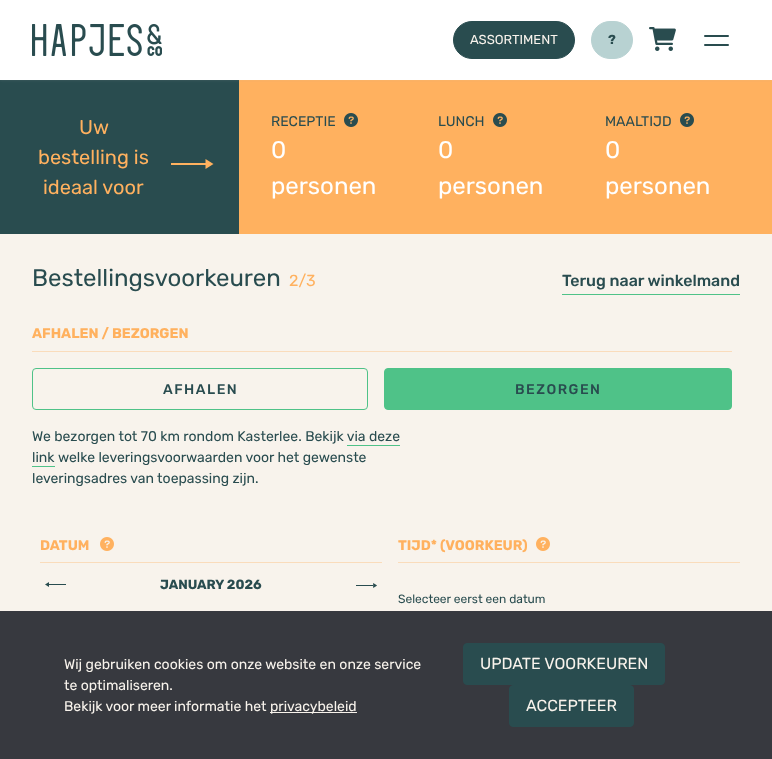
<svg xmlns="http://www.w3.org/2000/svg" width="772" height="759" viewBox="0 0 772 759">
  <style>
    .t1 { font: 13px Rubik; fill: #f8f3ec; }
    .t2 { font: bold 13px Rubik; fill: #294c4f; }
    .t3 { font: 20px Rubik; fill: #ffb15f; }
    .t4 { font: 14px Rubik; fill: #294c4f; }
    .t5 { font: 24px Rubik; fill: #fff; }
    .t6 { font: 24px Rubik; fill: #294c4f; }
    .t7 { font: 16px Rubik; fill: #ffb15f; }
    .t8 { font: 500 16px Rubik; fill: #294c4f; }
    .t9 { font: bold 14px Rubik; fill: #ffb15f; }
    .t10 { font: 500 14px Rubik; letter-spacing: 1.5px; fill: #294c4f; }
    .t11 { font: bold 13.25px Rubik; fill: #294c4f; }
    .t12 { font: 12px Rubik; fill: #294c4f; }
    .t13 { font: 14px Rubik; fill: #f8f3ec; }
    .t14 { font: 16px Rubik; fill: #f8f3ec; }
  </style>
  <rect width="100%" height="100%" fill="#f8f3ec"/>
  <rect x="0" y="80" width="239" height="154" fill="#294c4f"/>
  <rect x="239" y="80" width="533" height="154" fill="#ffb15f"/>
  <rect x="0" y="1" width="772" height="80" fill="#bababa1a" filter="blur(1px)"/>
  <rect x="0" y="0" width="772" height="80" fill="#fff"/>
  <image x="32" y="24" width="130" height="32" href="images/1.png"/>
  <rect x="453.5" y="21.5" width="121" height="37" rx="18.5" fill="#294c4f" stroke="#294c4f"/>
  <text x="470" y="44" class="t1">ASSORTIMENT</text>
  <rect x="591.5" y="21.5" width="41" height="37" rx="18.5" fill="#b8d2d2" stroke="#b8d2d2"/>
  <text x="608" y="44" class="t2">?</text>
  <image x="649" y="27" width="27" height="24" href="images/2.png"/>
  <rect x="704" y="35" width="25" height="2" rx="1" fill="#294c4f"/>
  <rect x="704" y="44" width="25" height="2" rx="1" fill="#294c4f"/>
  <text x="79" y="134" class="t3">Uw</text>
  <text x="38" y="164" class="t3">bestelling is</text>
  <text x="43" y="194" class="t3">ideaal voor</text>
  <path d="M205.5 169L213.5 164L205.5 159Z" fill="#ffb15f"/>
  <rect x="171" y="163" width="35" height="2" fill="#ffb15f"/>
  <text x="271" y="126" class="t4">RECEPTIE</text>
  <image x="344" y="113" width="14" height="14" href="images/3.png"/>
  <text x="271" y="158" class="t5">0</text>
  <text x="271" y="194" class="t5">personen</text>
  <text x="438" y="126" class="t4">LUNCH</text>
  <image x="493" y="113" width="14" height="14" href="images/3.png"/>
  <text x="438" y="158" class="t5">0</text>
  <text x="438" y="194" class="t5">personen</text>
  <text x="605" y="126" class="t4">MAALTIJD</text>
  <image x="680" y="113" width="14" height="14" href="images/3.png"/>
  <text x="605" y="158" class="t5">0</text>
  <text x="605" y="194" class="t5">personen</text>
  <text x="32" y="286" class="t6">Bestellingsvoorkeuren</text>
  <text x="289" y="286" class="t7">2/3</text>
  <text x="562" y="286" class="t8">Terug naar winkelmand</text>
  <rect x="562" y="294" width="178" height="1" fill="#4fc288"/>
  <rect x="32" y="351" width="700" height="1" fill="#fadcbb"/>
  <text x="32" y="338" class="t9">AFHALEN / BEZORGEN</text>
  <rect x="32.5" y="368.5" width="335" height="41" rx="3.5" fill="none" stroke="#4fc288"/>
  <text x="163" y="394" class="t10">AFHALEN</text>
  <rect x="384.5" y="368.5" width="347" height="41" rx="3.5" fill="#4fc288" stroke="#4fc288"/>
  <text x="515" y="394" class="t10">BEZORGEN</text>
  <text x="32" y="441" class="t4">We bezorgen tot 70 km rondom Kasterlee. Bekijk via deze</text>
  <text x="32" y="462" class="t4">link</text>
  <rect x="347" y="445" width="53" height="1" fill="#4fc288"/>
  <rect x="32" y="466" width="23" height="1" fill="#4fc288"/>
  <text x="58" y="462" class="t4">welke leveringsvoorwaarden voor het gewenste</text>
  <text x="32" y="483" class="t4">leveringsadres van toepassing zijn.</text>
  <rect x="40" y="562" width="342" height="1" fill="#fadcbb"/>
  <text x="40" y="550" class="t9">DATUM</text>
  <image x="100" y="537" width="14" height="14" href="images/4.png"/>
  <image x="45" y="582" width="21" height="5" href="images/5.png"/>
  <text x="160" y="589" class="t11">JANUARY 2026</text>
  <image x="356" y="583" width="21" height="5" href="images/6.png"/>
  <rect x="398" y="562" width="342" height="1" fill="#fadcbb"/>
  <text x="398" y="550" class="t9">TIJD* (VOORKEUR)</text>
  <image x="536" y="537" width="14" height="14" href="images/4.png"/>
  <text x="398" y="603" class="t12">Selecteer eerst een datum</text>
  <rect x="0" y="611" width="772" height="148" fill="#37393f"/>
  <text x="64" y="669" class="t13">Wij gebruiken cookies om onze website en onze service</text>
  <text x="64" y="690" class="t13">te optimaliseren.</text>
  <text x="64" y="711" class="t13">Bekijk voor meer informatie het</text>
  <rect x="270" y="712" width="87" height="1" fill="#f8f3ec"/>
  <text x="270" y="711" class="t13">privacybeleid</text>
  <rect x="463.5" y="643.5" width="201" height="41" rx="3.5" fill="#294c4f" stroke="#294c4f"/>
  <text x="480" y="669" class="t14">UPDATE VOORKEUREN</text>
  <rect x="509.5" y="685.5" width="124" height="41" rx="3.5" fill="#294c4f" stroke="#294c4f"/>
  <text x="526" y="711" class="t14">ACCEPTEER</text>
</svg>
